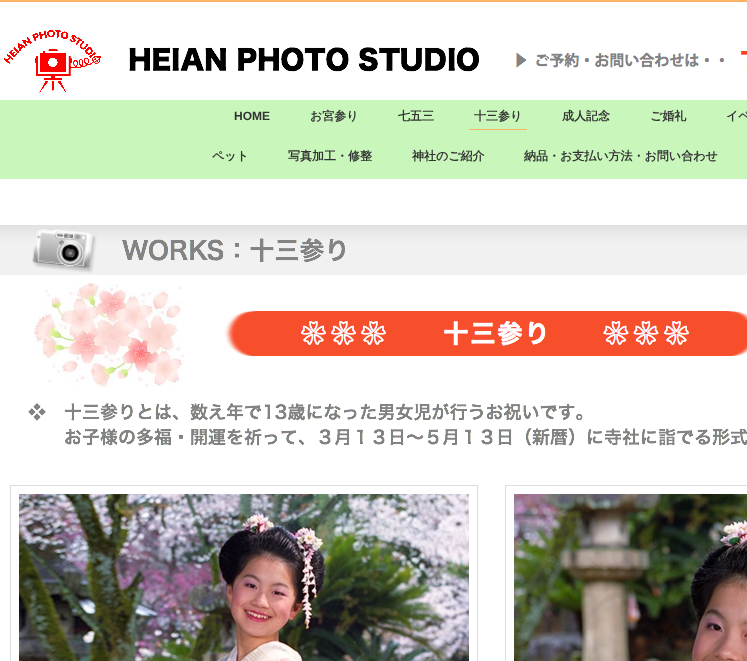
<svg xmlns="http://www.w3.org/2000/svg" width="747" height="661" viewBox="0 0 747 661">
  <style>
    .t1 { font: bold 12px Liberation Sans; fill: #333; }
    .t2 { font: bold 12px WenQuanYi Zen Hei; fill: #333; }
  </style>
  <rect width="100%" height="100%" fill="#fff"/>
  <rect x="0" y="0" width="747" height="2" fill="#fdb365"/>
  <image x="4" y="30" width="743" height="64" href="images/1.png"/>
  <rect x="0" y="100" width="747" height="79" fill="#c9f7bb"/>
  <text x="234" y="120" class="t1">HOME</text>
  <text x="310" y="120" class="t2">お宮参り</text>
  <text x="398" y="120" class="t2">七五三</text>
  <rect x="469" y="129" width="58" height="1" fill="#fdb365"/>
  <text x="474" y="120" class="t2">十三参り</text>
  <text x="562" y="120" class="t2">成人記念</text>
  <text x="650" y="120" class="t2">ご婚礼</text>
  <text x="726" y="120" class="t2">イベ</text>
  <text x="212" y="160" class="t2">ペット</text>
  <text x="288" y="160" class="t2">写真加工・修整</text>
  <text x="412" y="160" class="t2">神社のご紹介</text>
  <text x="524" y="160" class="t2">納品・お支払い方法・お問い合わせ</text>
  <image x="0" y="225" width="747" height="50" href="images/2.png"/>
  <image x="32" y="228" width="313" height="45" href="images/3.png"/>
  <image x="34" y="283" width="713" height="104" href="images/4.png"/>
  <image x="28" y="403" width="719" height="43" href="images/5.png"/>
  <rect x="10.5" y="485.5" width="467" height="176" fill="none" stroke="#ddd"/>
  <image x="19" y="494" width="450" height="167" href="images/6.png"/>
  <rect x="505.5" y="485.5" width="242" height="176" fill="none" stroke="#ddd"/>
  <image x="514" y="494" width="233" height="167" href="images/7.png"/>
</svg>
